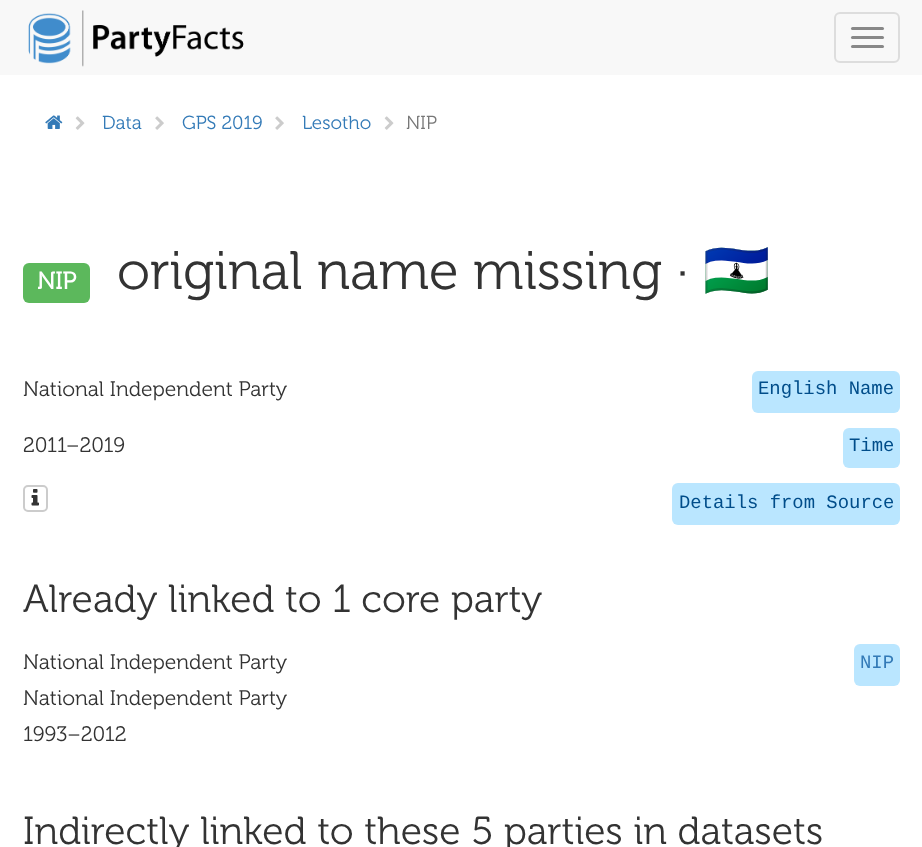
<svg xmlns="http://www.w3.org/2000/svg" width="922" height="847" viewBox="0 0 922 847">
  <style>
    .t1 { font: 18.9px 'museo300'; fill: #337ab7; }
    .t2 { font: 18.9px 'museo300'; fill: #777; }
    .t3 { font: bold 24px 'museo300'; fill: #fff; }
    .t4 { font: 54px 'museo300'; fill: #333; }
    .t5 { font: 54px Noto Color Emoji; fill: #333; }
    .t6 { font: 21px 'museo300'; fill: #333; }
    .t7 { font: 18.9px Liberation Mono; fill: #004d8a; }
    .t8 { font: 39px 'museo300'; fill: #333; }
    .t9 { font: 18.9px Liberation Mono; fill: #337ab7; }
  </style>
  <rect width="100%" height="100%" fill="#fff"/>
  <rect x="0" y="0" width="922" height="75" fill="#f8f8f8"/>
  <image x="28" y="10" width="216" height="57" href="images/1.png"/>
  <rect x="835" y="13" width="64" height="49" rx="5" fill="none" stroke="#ddd" stroke-width="2"/>
  <rect x="851" y="27" width="33" height="3" rx="1.5" fill="#888"/>
  <rect x="851" y="36" width="33" height="3" rx="1.5" fill="#888"/>
  <rect x="851" y="45" width="33" height="3" rx="1.5" fill="#888"/>
  <image x="45" y="115" width="18" height="14" href="images/2.png"/>
  <image x="75" y="116" width="10" height="14" href="images/3.png"/>
  <text x="102" y="129" class="t1">Data</text>
  <image x="155" y="116" width="9" height="14" href="images/4.png"/>
  <text x="182" y="129" class="t1">GPS 2019</text>
  <image x="275" y="116" width="9" height="14" href="images/4.png"/>
  <text x="302" y="129" class="t1">Lesotho</text>
  <image x="384" y="116" width="10" height="14" href="images/3.png"/>
  <text x="406" y="129" class="t2">NIP</text>
  <rect x="23" y="263" width="67" height="40" rx="6" fill="#5cb85c"/>
  <text x="37" y="289" class="t3">NIP</text>
  <text x="117" y="289" class="t4">original name missing ·</text>
  <text x="703" y="289" class="t5">🇱🇸</text>
  <text x="23" y="396" class="t6">National Independent Party</text>
  <rect x="752" y="371" width="148" height="42" rx="6" fill="#bae6ff"/>
  <text x="758" y="394" class="t7">English Name</text>
  <text x="23" y="452" class="t6">2011–2019</text>
  <rect x="843" y="428" width="57" height="40" rx="6" fill="#bae6ff"/>
  <text x="849" y="451" class="t7">Time</text>
  <rect x="24" y="486" width="23" height="25" rx="4" fill="none" stroke="#ccc" stroke-width="2"/>
  <image x="31" y="489" width="8" height="17" href="images/5.png"/>
  <rect x="672" y="483" width="228" height="42" rx="6" fill="#bae6ff"/>
  <text x="679" y="508" class="t7">Details from Source</text>
  <text x="23" y="612" class="t8">Already linked to 1 core party</text>
  <text x="23" y="669" class="t6">National Independent Party</text>
  <text x="23" y="705" class="t6">National Independent Party</text>
  <text x="23" y="741" class="t6">1993–2012</text>
  <rect x="854" y="644" width="46" height="42" rx="6" fill="#bae6ff"/>
  <text x="860" y="668" class="t9">NIP</text>
  <text x="23" y="844" class="t8">Indirectly linked to these 5 parties in datasets</text>
</svg>
